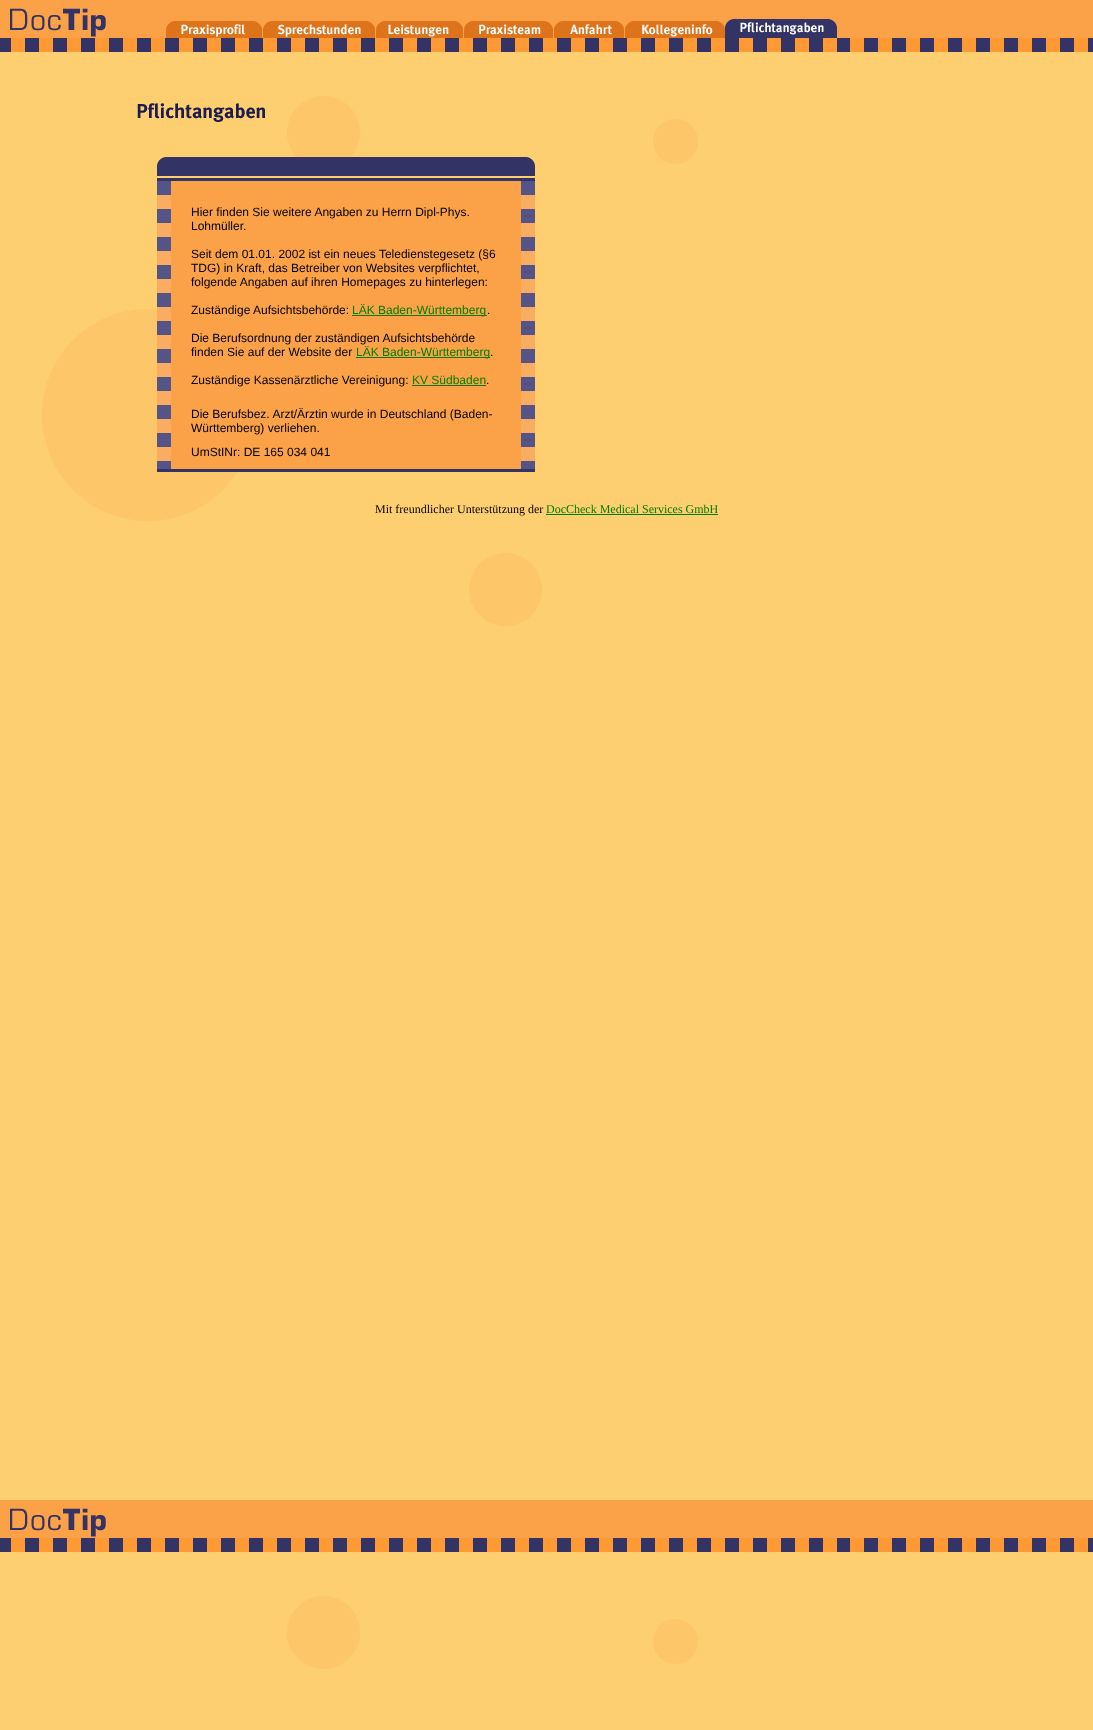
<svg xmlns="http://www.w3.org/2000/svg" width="1093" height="1730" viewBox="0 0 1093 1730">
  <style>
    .t1 { font: 12px Liberation Sans; fill: #000; }
    .t2 { font: 12px Liberation Sans; fill: #008000; }
    .t3 { font: 12px Liberation Serif; fill: #000; }
    .t4 { font: 12px Liberation Serif; fill: #008000; }
  </style>
  <rect width="100%" height="100%" fill="#fff"/>
  <image x="0" y="0" width="1093" height="1730" href="images/1.png"/>
  <image x="166" y="21" width="96" height="17" href="images/2.png"/>
  <image x="263" y="21" width="112" height="17" href="images/3.png"/>
  <image x="376" y="21" width="87" height="17" href="images/4.png"/>
  <image x="464" y="21" width="89" height="17" href="images/5.png"/>
  <image x="554" y="21" width="70" height="17" href="images/6.png"/>
  <image x="625" y="21" width="100" height="17" href="images/7.png"/>
  <image x="725" y="19" width="112" height="19" href="images/8.png"/>
  <image x="137" y="103" width="128" height="19" href="images/9.png"/>
  <image x="157" y="157" width="14" height="24" href="images/10.png"/>
  <image x="171" y="157" width="350" height="24" href="images/11.png"/>
  <image x="521" y="157" width="14" height="24" href="images/12.png"/>
  <image x="157" y="181" width="14" height="288" href="images/13.png"/>
  <rect x="171" y="181" width="350" height="288" fill="#fba147"/>
  <text x="191" y="216" class="t1">Hier finden Sie weitere Angaben zu Herrn Dipl-Phys.</text>
  <text x="191" y="230" class="t1">Lohmüller.</text>
  <text x="191" y="258" class="t1">Seit dem 01.01. 2002 ist ein neues Teledienstegesetz (§6</text>
  <text x="191" y="272" class="t1">TDG) in Kraft, das Betreiber von Websites verpflichtet,</text>
  <text x="191" y="286" class="t1">folgende Angaben auf ihren Homepages zu hinterlegen:</text>
  <text x="191" y="314" class="t1">Zuständige Aufsichtsbehörde:</text>
  <rect x="352" y="315" width="135" height="1" fill="#008000"/>
  <text x="352" y="314" class="t2">LÄK Baden-Württemberg</text>
  <text x="487" y="314" class="t1">.</text>
  <text x="191" y="342" class="t1">Die Berufsordnung der zuständigen Aufsichtsbehörde</text>
  <text x="191" y="356" class="t1">finden Sie auf der Website der</text>
  <rect x="356" y="357" width="134" height="1" fill="#008000"/>
  <text x="356" y="356" class="t2">LÄK Baden-Württemberg</text>
  <text x="490" y="356" class="t1">.</text>
  <text x="191" y="384" class="t1">Zuständige Kassenärztliche Vereinigung:</text>
  <text x="412" y="384" class="t2">KV Südbaden</text>
  <rect x="412" y="385" width="74" height="1" fill="#008000"/>
  <text x="486" y="384" class="t1">.</text>
  <text x="191" y="418" class="t1">Die Berufsbez. Arzt/Ärztin wurde in Deutschland (Baden-</text>
  <text x="191" y="432" class="t1">Württemberg) verliehen.</text>
  <text x="191" y="456" class="t1">UmStINr: DE 165 034 041</text>
  <image x="521" y="181" width="14" height="288" href="images/13.png"/>
  <rect x="157" y="469" width="378" height="3" fill="#336"/>
  <text x="375" y="513" class="t3">Mit freundlicher Unterstützung der</text>
  <text x="546" y="513" class="t4">DocCheck Medical Services GmbH</text>
  <rect x="546" y="514" width="172" height="1" fill="#008000"/>
</svg>
